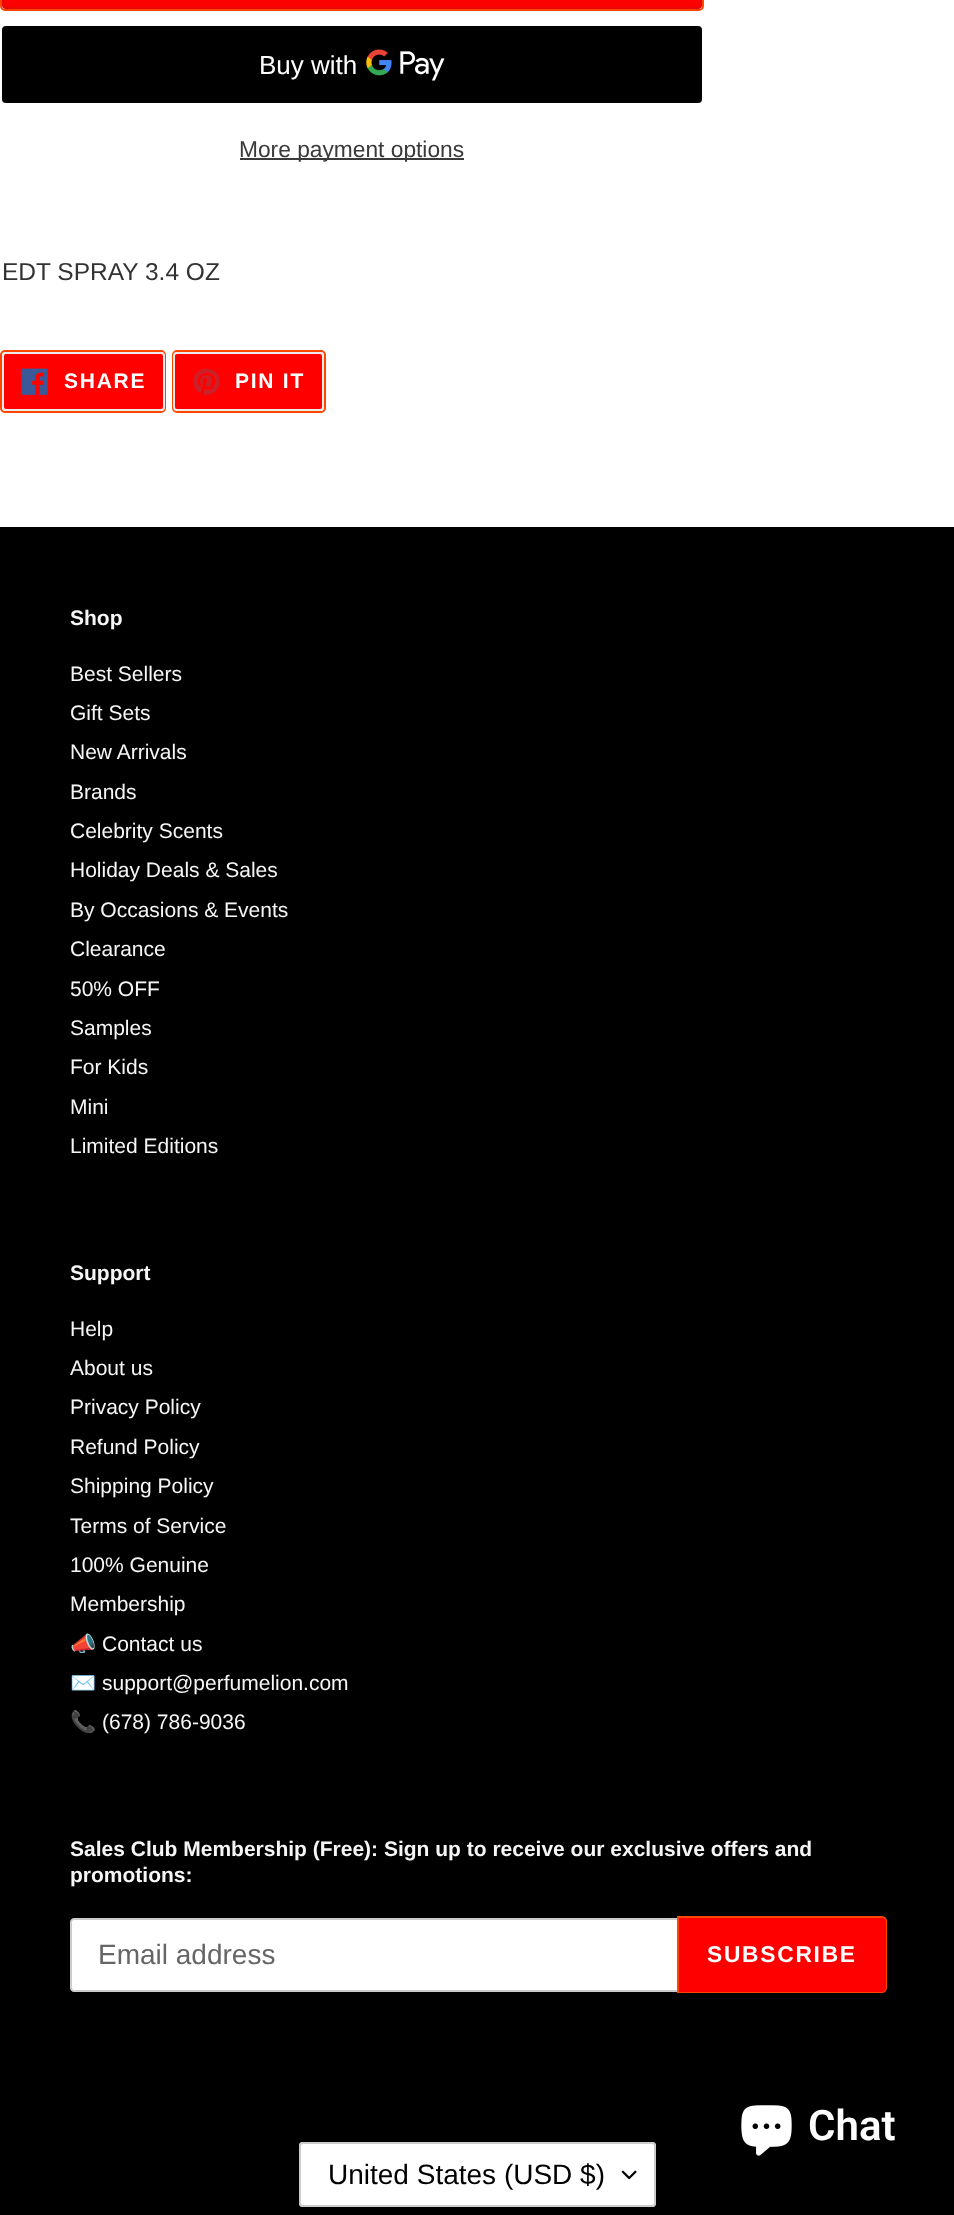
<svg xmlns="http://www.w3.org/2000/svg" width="954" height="2215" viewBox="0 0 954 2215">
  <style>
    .t1 { font: 26px Liberation Sans; fill: #fff; }
    .t2 { font: 22.75px Liberation Sans; fill: #3a3a3a; }
    .t3 { font: 24.5px Liberation Sans; fill: #333232; }
    .t4 { font: bold 21px Liberation Sans; letter-spacing: 1.75px; fill: #fff; }
    .t5 { font: bold 21px Liberation Sans; fill: #f6f6f6; }
    .t6 { font: 21px Liberation Sans; fill: #f6f6f6; }
    .t7 { font: 21px Noto Color Emoji; fill: #f6f6f6; }
    .t8 { font: 28px Liberation Sans; fill: #666; }
    .t9 { font: bold 22.75px Liberation Sans; letter-spacing: 1.75px; fill: #fff; }
    .t10 { font: 28px Liberation Sans; fill: #000; }
    .t11 { font: 600 42px Roboto; fill: #fff; }
  </style>
  <rect width="100%" height="100%" fill="#fff"/>
  <rect x="1" y="-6" width="702" height="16" rx="4" fill="none" stroke="#ff4500" stroke-width="2"/>
  <rect x="3" y="-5" width="698" height="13" rx="3" fill="#f00" stroke="#ea0606" stroke-width="2"/>
  <rect x="2" y="26" width="700" height="77" rx="4" fill="#000"/>
  <text x="259" y="74" class="t1">Buy with</text>
  <image x="366" y="49" width="79" height="32" href="images/1.png"/>
  <rect x="240" y="158" width="224" height="2" fill="#3a3a3a"/>
  <text x="239" y="157" class="t2">More payment options</text>
  <text x="2" y="280" class="t3">EDT SPRAY 3.4 OZ</text>
  <rect x="1" y="351" width="164" height="61" rx="4" fill="none" stroke="#ff4500" stroke-width="2"/>
  <rect x="3" y="353" width="161" height="57" rx="3" fill="#f00" stroke="#ebebeb" stroke-width="2"/>
  <image x="21" y="368" width="27" height="27" href="images/2.png"/>
  <text x="64" y="388" class="t4">SHARE</text>
  <rect x="173" y="351" width="152" height="61" rx="4" fill="none" stroke="#ff4500" stroke-width="2"/>
  <rect x="174" y="353" width="149" height="57" rx="3" fill="#f00" stroke="#ebebeb" stroke-width="2"/>
  <image x="193" y="368" width="27" height="27" href="images/3.png"/>
  <text x="235" y="388" class="t4">PIN IT</text>
  <rect x="0" y="527" width="954" height="1688" fill="#000"/>
  <text x="70" y="625" class="t5">Shop</text>
  <text x="70" y="681" class="t6">Best Sellers</text>
  <text x="70" y="720" class="t6">Gift Sets</text>
  <text x="70" y="759" class="t6">New Arrivals</text>
  <text x="70" y="799" class="t6">Brands</text>
  <text x="70" y="838" class="t6">Celebrity Scents</text>
  <text x="70" y="877" class="t6">Holiday Deals &amp; Sales</text>
  <text x="70" y="917" class="t6">By Occasions &amp; Events</text>
  <text x="70" y="956" class="t6">Clearance</text>
  <text x="70" y="996" class="t6">50% OFF</text>
  <text x="70" y="1035" class="t6">Samples</text>
  <text x="70" y="1074" class="t6">For Kids</text>
  <text x="70" y="1114" class="t6">Mini</text>
  <text x="70" y="1153" class="t6">Limited Editions</text>
  <text x="70" y="1280" class="t5">Support</text>
  <text x="70" y="1336" class="t6">Help</text>
  <text x="70" y="1375" class="t6">About us</text>
  <text x="70" y="1414" class="t6">Privacy Policy</text>
  <text x="70" y="1454" class="t6">Refund Policy</text>
  <text x="70" y="1493" class="t6">Shipping Policy</text>
  <text x="70" y="1533" class="t6">Terms of Service</text>
  <text x="70" y="1572" class="t6">100% Genuine</text>
  <text x="70" y="1611" class="t6">Membership</text>
  <text x="70" y="1651" class="t7">📣</text>
  <text x="102" y="1651" class="t6">Contact us</text>
  <text x="70" y="1690" class="t7">✉️</text>
  <text x="102" y="1690" class="t6">support@perfumelion.com</text>
  <text x="70" y="1729" class="t7">📞</text>
  <text x="102" y="1729" class="t6">(678) 786-9036</text>
  <text x="70" y="1856" class="t5">Sales Club Membership (Free): Sign up to receive our exclusive offers and</text>
  <text x="70" y="1882" class="t5">promotions:</text>
  <path d="M74 1919H680V1991H74C72.5 1991 71 1989.5 71 1988V1922C71 1920.5 72.5 1919 74 1919Z" fill="#fff" stroke="#ccc" stroke-width="2"/>
  <text x="98" y="1964" class="t8">Email address</text>
  <path d="M678 1917H882C884 1917 886 1919 886 1921V1988C886 1990 884 1992 882 1992H678Z" fill="none" stroke="#ff4500" stroke-width="2"/>
  <path d="M679 1918H882C884 1918 886 1920 886 1922V1988C886 1990 884 1992 882 1992H679Z" fill="#f00"/>
  <text x="707" y="1962" class="t9">SUBSCRIBE</text>
  <rect x="299" y="2142" width="357" height="65" rx="4" fill="#fff"/>
  <image x="621" y="2170" width="16" height="10" href="images/4.png"/>
  <rect x="300" y="2143" width="355" height="63" rx="3" fill="none" stroke="#ccc" stroke-width="2"/>
  <text x="328" y="2184" class="t10">United States (USD $)</text>
  <image x="741" y="2105" width="51" height="51" href="images/5.png"/>
  <text x="808" y="2140" class="t11">Chat</text>
</svg>
